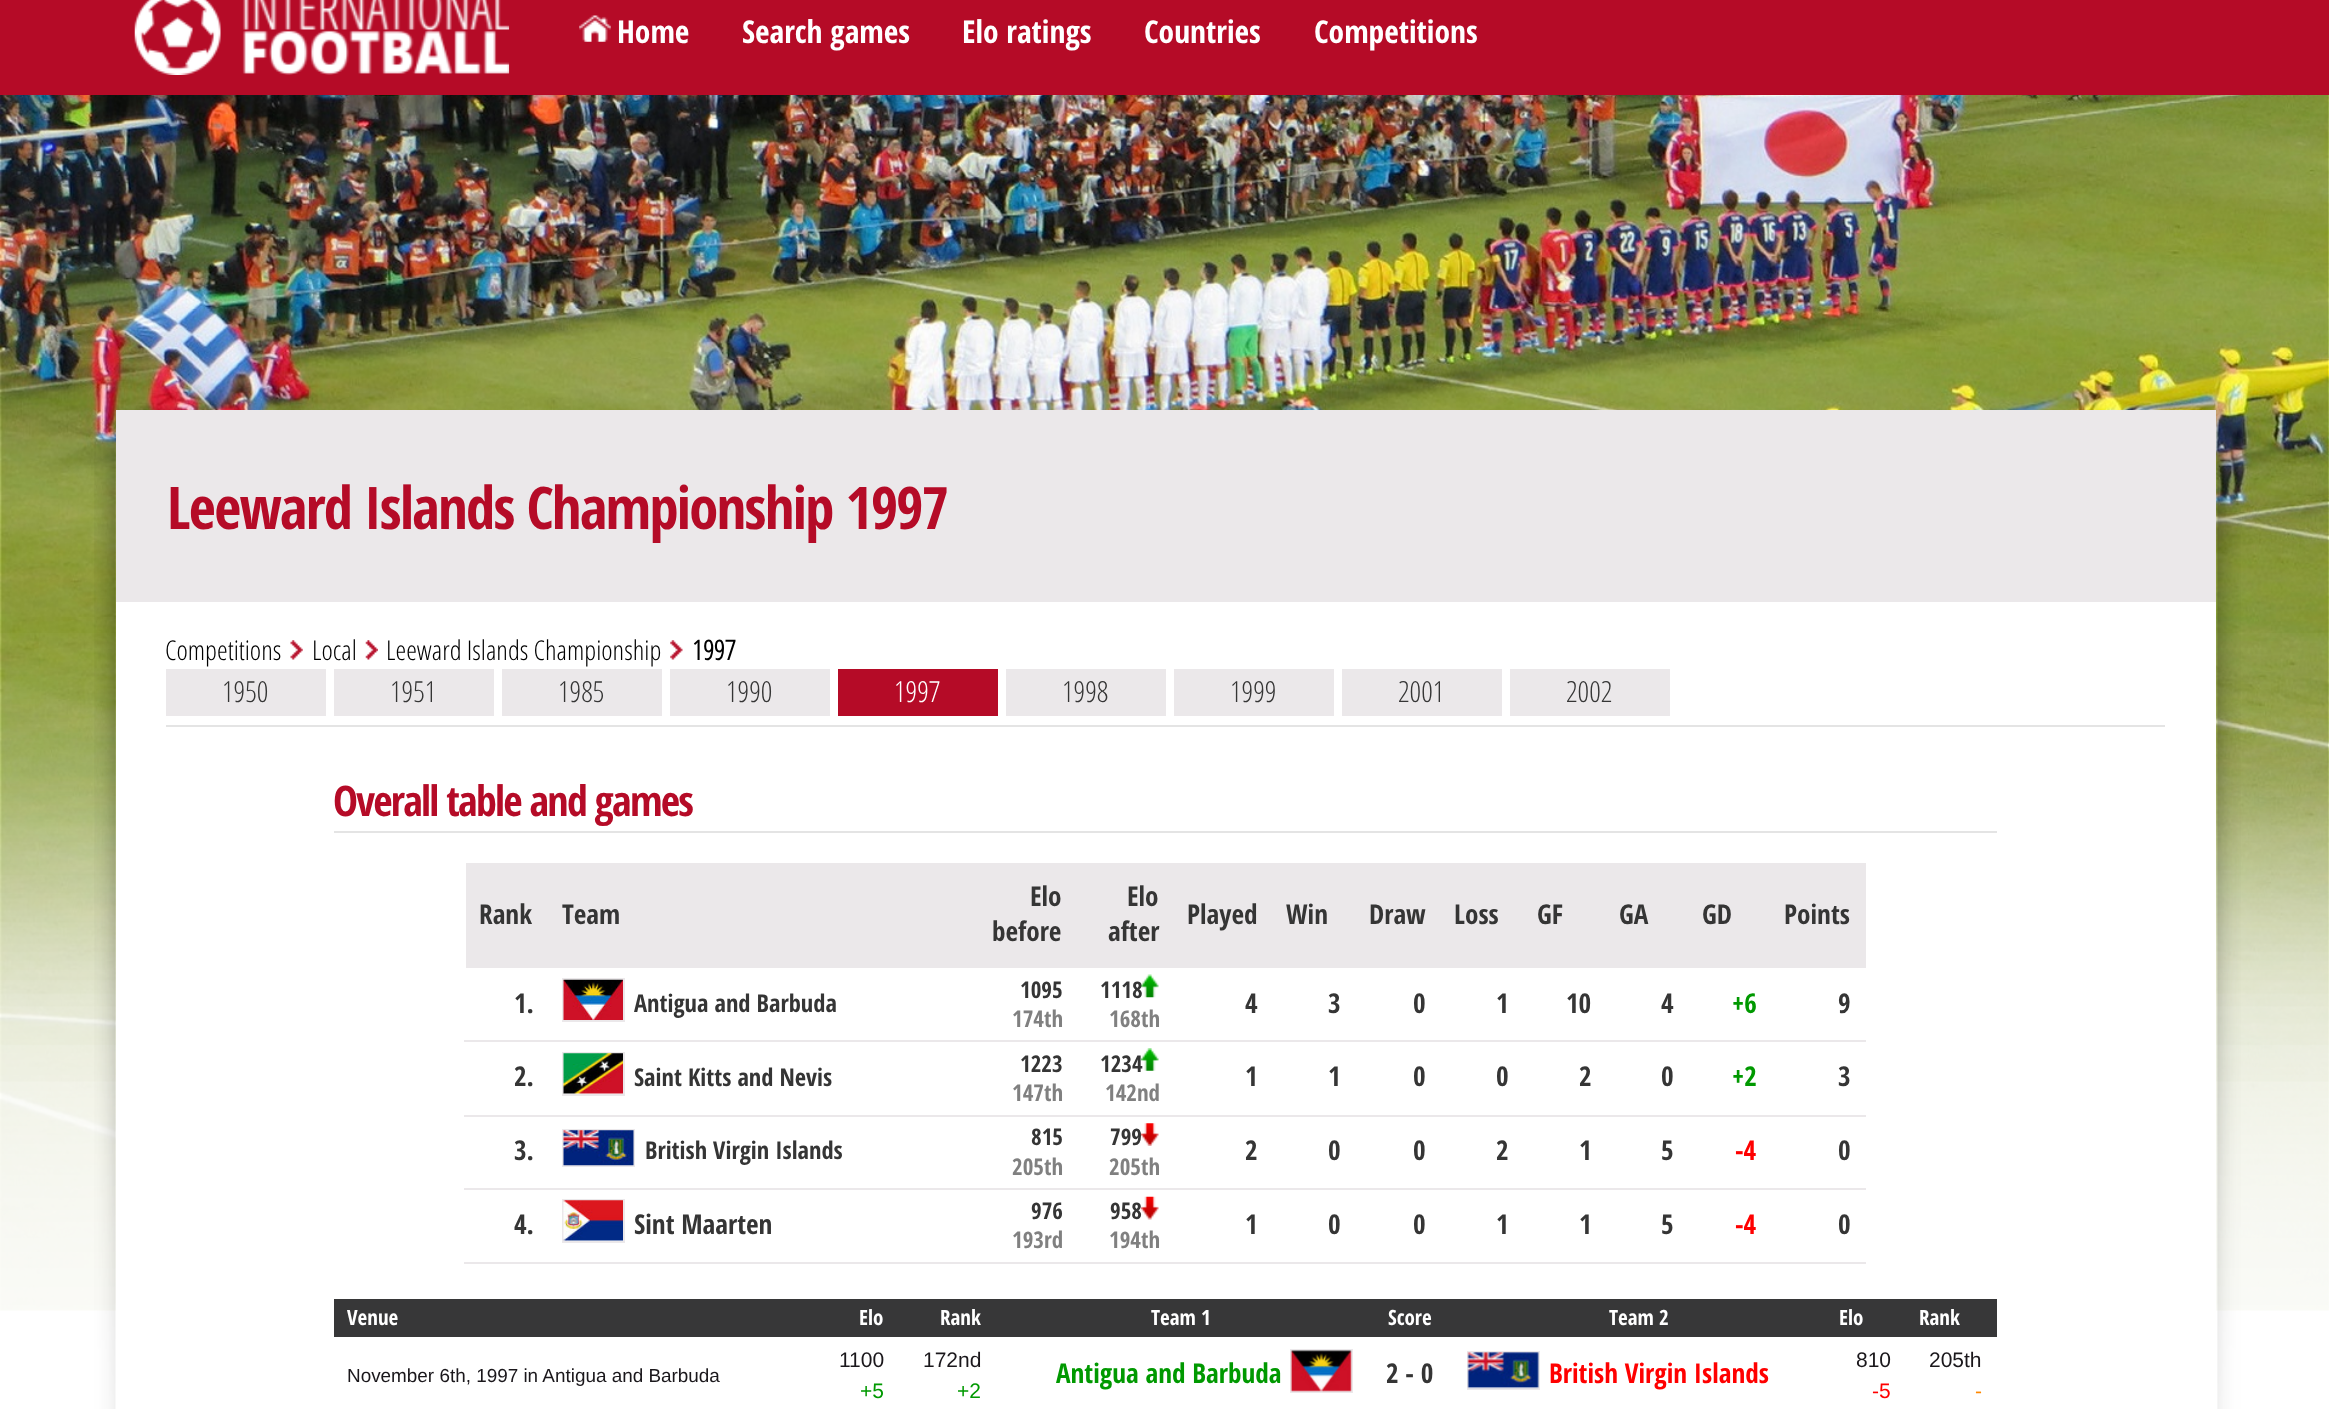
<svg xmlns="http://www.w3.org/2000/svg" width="2329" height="1409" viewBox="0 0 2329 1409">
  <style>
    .t1 { font: bold 31.5px Open Sans Condensed; fill: #fff; }
    .t2 { font: bold 58.75px Open Sans Condensed; letter-spacing: -1.75px; fill: #b50b27; }
    .t3 { font: 300 27.25px Open Sans; fill: #000; }
    .t4 { font: bold 27.25px Open Sans; fill: #000; }
    .t5 { font: 300 29px Open Sans; fill: #353535; }
    .t6 { font: 300 29px Open Sans; fill: #fff; }
    .t7 { font: bold 42px Open Sans Condensed; letter-spacing: -1.75px; fill: #b50b27; }
    .t8 { font: bold 27.25px Open Sans Condensed; fill: #353535; }
    .t9 { font: bold 24.5px Open Sans Condensed; fill: #353535; }
    .t10 { font: bold 23px Open Sans Condensed; fill: #353535; }
    .t11 { font: bold 23px Open Sans Condensed; fill: #808080; }
    .t12 { font: bold 27.25px Open Sans Condensed; fill: #090; }
    .t13 { font: bold 27.25px Open Sans Condensed; fill: #f00; }
    .t14 { font: bold 21px Open Sans Condensed; fill: #fff; }
    .t15 { font: 18.9px Liberation Sans; fill: #1a171b; }
    .t16 { font: 21px Liberation Sans; fill: #1a171b; }
    .t17 { font: 21px Liberation Sans; fill: #090; }
    .t18 { font: 21px Liberation Sans; fill: #f00; }
    .t19 { font: 21px Liberation Sans; fill: #f80; }
  </style>
  <rect width="100%" height="100%" fill="#fff"/>
  <rect x="0" y="0" width="2329" height="95" fill="#b50b27"/>
  <image x="134" y="0" width="376" height="75" href="images/1.png"/>
  <image x="579" y="15" width="32" height="27" href="images/2.png"/>
  <text x="617" y="43" class="t1">Home</text>
  <text x="742" y="43" class="t1">Search games</text>
  <text x="962" y="43" class="t1">Elo ratings</text>
  <text x="1144" y="43" class="t1">Countries</text>
  <text x="1314" y="43" class="t1">Competitions</text>
  <image x="0" y="95" width="2329" height="1216" href="images/18.png"/>
  <image x="0" y="633" width="2329" height="678" href="images/19.png"/>
  <image x="94" y="428" width="22" height="981" href="images/3.png"/>
  <rect x="116" y="602" width="2100" height="709" fill="#fff"/>
  <rect x="116" y="410" width="2100" height="192" fill="#ebe8ea"/>
  <text x="167" y="529" class="t2">Leeward Islands Championship 1997</text>
  <text x="165" y="660" class="t3">Competitions</text>
  <image x="290" y="640" width="13" height="20" href="images/4.png"/>
  <text x="312" y="660" class="t3">Local</text>
  <image x="365" y="640" width="13" height="20" href="images/5.png"/>
  <text x="386" y="660" class="t3">Leeward Islands Championship</text>
  <image x="670" y="640" width="13" height="20" href="images/6.png"/>
  <text x="692" y="660" class="t4">1997</text>
  <rect x="166" y="669" width="160" height="47" fill="#ebe8ea"/>
  <text x="222" y="702" class="t5">1950</text>
  <rect x="334" y="669" width="160" height="47" fill="#ebe8ea"/>
  <text x="390" y="702" class="t5">1951</text>
  <rect x="502" y="669" width="160" height="47" fill="#ebe8ea"/>
  <text x="558" y="702" class="t5">1985</text>
  <rect x="670" y="669" width="160" height="47" fill="#ebe8ea"/>
  <text x="726" y="702" class="t5">1990</text>
  <rect x="838" y="669" width="160" height="47" fill="#b50b27"/>
  <text x="894" y="702" class="t6">1997</text>
  <rect x="1006" y="669" width="160" height="47" fill="#ebe8ea"/>
  <text x="1062" y="702" class="t5">1998</text>
  <rect x="1174" y="669" width="160" height="47" fill="#ebe8ea"/>
  <text x="1230" y="702" class="t5">1999</text>
  <rect x="1342" y="669" width="160" height="47" fill="#ebe8ea"/>
  <text x="1398" y="702" class="t5">2001</text>
  <rect x="1510" y="669" width="160" height="47" fill="#ebe8ea"/>
  <text x="1566" y="702" class="t5">2002</text>
  <rect x="166" y="725" width="1999" height="2" fill="#e4e4e4"/>
  <text x="333" y="816" class="t7">Overall table and games</text>
  <rect x="334" y="831" width="1663" height="2" fill="#e4e4e4"/>
  <rect x="466" y="863" width="1400" height="105" fill="#ebe8ea"/>
  <text x="479" y="924" class="t8">Rank</text>
  <text x="562" y="924" class="t8">Team</text>
  <text x="1030" y="906" class="t8">Elo</text>
  <text x="992" y="941" class="t8">before</text>
  <text x="1127" y="906" class="t8">Elo</text>
  <text x="1108" y="941" class="t8">after</text>
  <text x="1187" y="924" class="t8">Played</text>
  <text x="1286" y="924" class="t8">Win</text>
  <text x="1369" y="924" class="t8">Draw</text>
  <text x="1454" y="924" class="t8">Loss</text>
  <text x="1537" y="924" class="t8">GF</text>
  <text x="1619" y="924" class="t8">GA</text>
  <text x="1702" y="924" class="t8">GD</text>
  <text x="1784" y="924" class="t8">Points</text>
  <text x="514" y="1013" class="t8">1.</text>
  <rect x="563" y="979" width="61" height="42" fill="none" stroke="#ebe8ea" stroke-width="2"/>
  <image x="563" y="979" width="60" height="41" href="images/7.png"/>
  <text x="634" y="1012" class="t9">Antigua and Barbuda</text>
  <text x="1020" y="998" class="t10">1095</text>
  <text x="1012" y="1027" class="t11">174th</text>
  <text x="1100" y="998" class="t10">1118</text>
  <image x="1141" y="974" width="18" height="24" href="images/8.png"/>
  <text x="1109" y="1027" class="t11">168th</text>
  <text x="1245" y="1013" class="t8">4</text>
  <text x="1328" y="1013" class="t8">3</text>
  <text x="1413" y="1013" class="t8">0</text>
  <text x="1496" y="1013" class="t8">1</text>
  <text x="1566" y="1013" class="t8">10</text>
  <text x="1661" y="1013" class="t8">4</text>
  <text x="1732" y="1013" class="t12">+6</text>
  <rect x="464" y="1040" width="1402" height="2" fill="#ebe8ea"/>
  <text x="1838" y="1013" class="t8">9</text>
  <text x="514" y="1086" class="t8">2.</text>
  <rect x="563" y="1053" width="61" height="42" fill="none" stroke="#ebe8ea" stroke-width="2"/>
  <image x="563" y="1053" width="60" height="41" href="images/9.png"/>
  <text x="634" y="1086" class="t9">Saint Kitts and Nevis</text>
  <text x="1020" y="1072" class="t10">1223</text>
  <text x="1012" y="1101" class="t11">147th</text>
  <text x="1100" y="1072" class="t10">1234</text>
  <image x="1141" y="1048" width="18" height="23" href="images/10.png"/>
  <text x="1105" y="1101" class="t11">142nd</text>
  <text x="1245" y="1086" class="t8">1</text>
  <text x="1328" y="1086" class="t8">1</text>
  <text x="1413" y="1086" class="t8">0</text>
  <text x="1496" y="1086" class="t8">0</text>
  <text x="1579" y="1086" class="t8">2</text>
  <text x="1661" y="1086" class="t8">0</text>
  <text x="1732" y="1086" class="t12">+2</text>
  <rect x="464" y="1115" width="1402" height="2" fill="#ebe8ea"/>
  <text x="1838" y="1086" class="t8">3</text>
  <text x="514" y="1160" class="t8">3.</text>
  <rect x="563" y="1130" width="71" height="36" fill="none" stroke="#ebe8ea" stroke-width="2"/>
  <image x="563" y="1130" width="71" height="36" href="images/11.png"/>
  <text x="645" y="1159" class="t9">British Virgin Islands</text>
  <text x="1031" y="1145" class="t10">815</text>
  <text x="1012" y="1175" class="t11">205th</text>
  <text x="1110" y="1145" class="t10">799</text>
  <image x="1141" y="1123" width="18" height="23" href="images/12.png"/>
  <text x="1109" y="1175" class="t11">205th</text>
  <text x="1245" y="1160" class="t8">2</text>
  <text x="1328" y="1160" class="t8">0</text>
  <text x="1413" y="1160" class="t8">0</text>
  <text x="1496" y="1160" class="t8">2</text>
  <text x="1579" y="1160" class="t8">1</text>
  <text x="1661" y="1160" class="t8">5</text>
  <text x="1735" y="1160" class="t13">-4</text>
  <rect x="464" y="1188" width="1402" height="2" fill="#ebe8ea"/>
  <text x="1838" y="1160" class="t8">0</text>
  <text x="514" y="1234" class="t8">4.</text>
  <rect x="563" y="1200" width="61" height="42" fill="none" stroke="#ebe8ea" stroke-width="2"/>
  <image x="563" y="1200" width="60" height="41" href="images/13.png"/>
  <text x="634" y="1234" class="t8">Sint Maarten</text>
  <text x="1031" y="1219" class="t10">976</text>
  <text x="1012" y="1248" class="t11">193rd</text>
  <text x="1110" y="1219" class="t10">958</text>
  <image x="1141" y="1196" width="18" height="24" href="images/14.png"/>
  <text x="1109" y="1248" class="t11">194th</text>
  <text x="1245" y="1234" class="t8">1</text>
  <text x="1328" y="1234" class="t8">0</text>
  <text x="1413" y="1234" class="t8">0</text>
  <text x="1496" y="1234" class="t8">1</text>
  <text x="1579" y="1234" class="t8">1</text>
  <text x="1661" y="1234" class="t8">5</text>
  <text x="1735" y="1234" class="t13">-4</text>
  <rect x="464" y="1262" width="1402" height="2" fill="#ebe8ea"/>
  <text x="1838" y="1234" class="t8">0</text>
  <rect x="334" y="1299" width="1663" height="38" fill="#373738"/>
  <text x="347" y="1325" class="t14">Venue</text>
  <text x="859" y="1325" class="t14">Elo</text>
  <text x="940" y="1325" class="t14">Rank</text>
  <text x="1151" y="1325" class="t14">Team 1</text>
  <text x="1388" y="1325" class="t14">Score</text>
  <text x="1609" y="1325" class="t14">Team 2</text>
  <text x="1839" y="1325" class="t14">Elo</text>
  <text x="1919" y="1325" class="t14">Rank</text>
  <text x="347" y="1382" class="t15">November 6th, 1997 in Antigua and Barbuda</text>
  <text x="839" y="1367" class="t16">1100</text>
  <text x="860" y="1398" class="t17">+5</text>
  <text x="923" y="1367" class="t16">172nd</text>
  <text x="957" y="1398" class="t17">+2</text>
  <text x="1056" y="1383" class="t12">Antigua and Barbuda</text>
  <rect x="1291" y="1350" width="61" height="42" fill="none" stroke="#ebe8ea" stroke-width="2"/>
  <image x="1290" y="1350" width="62" height="42" href="images/15.png"/>
  <text x="1386" y="1383" class="t8">2 - 0</text>
  <rect x="1468" y="1352" width="71" height="37" fill="none" stroke="#ebe8ea" stroke-width="2"/>
  <image x="1467" y="1352" width="72" height="37" href="images/16.png"/>
  <text x="1549" y="1383" class="t13">British Virgin Islands</text>
  <text x="1856" y="1367" class="t16">810</text>
  <text x="1872" y="1398" class="t18">-5</text>
  <text x="1929" y="1367" class="t16">205th</text>
  <text x="1975" y="1398" class="t19">-</text>
  <image x="2217" y="431" width="24" height="978" href="images/17.png"/>
</svg>
